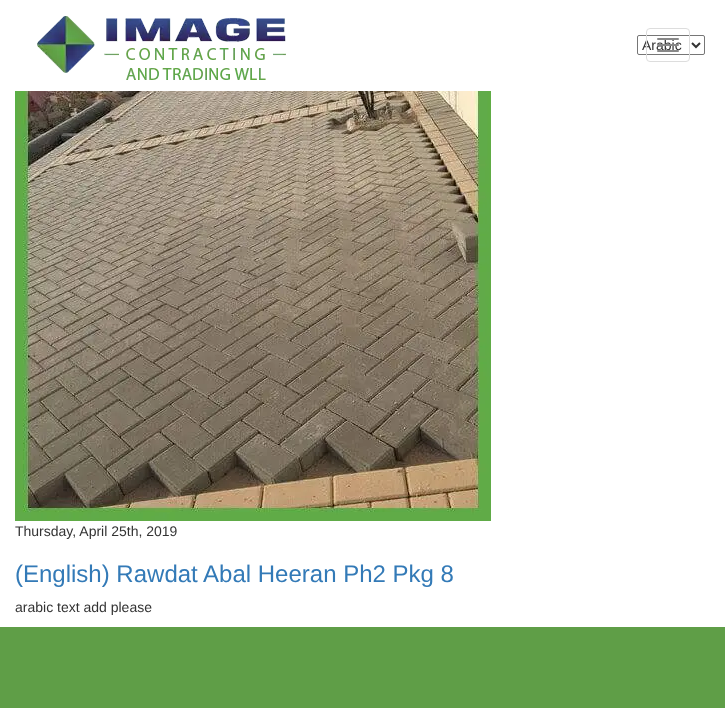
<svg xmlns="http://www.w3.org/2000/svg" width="725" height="708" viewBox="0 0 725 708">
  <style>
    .t1 { font: 14px Liberation Sans; fill: #333; }
    .t2 { font: 24px Liberation Sans; fill: #337ab7; }
  </style>
  <rect width="100%" height="100%" fill="#fff"/>
  <image x="37" y="16" width="249" height="64" href="images/1.png"/>
  <rect x="637.5" y="35.5" width="67" height="19" rx="1.5" fill="none" stroke="#767676"/>
  <text x="642" y="50" class="t1">Arabic</text>
  <rect x="646.5" y="28.5" width="43" height="33" rx="3.5" fill="none" stroke="#ddd"/>
  <rect x="657" y="38" width="22" height="2" rx="1" fill="#888"/>
  <rect x="657" y="44" width="22" height="2" rx="1" fill="#888"/>
  <rect x="657" y="50" width="22" height="2" rx="1" fill="#888"/>
  <path d="M692 43L696 47L700 43" fill="none" stroke="#333" stroke-width="2"/>
  <image x="15" y="91" width="476" height="430" href="images/2.png"/>
  <text x="15" y="536" class="t1">Thursday, April 25th, 2019</text>
  <text x="15" y="582" class="t2">(English) Rawdat Abal Heeran Ph2 Pkg 8</text>
  <text x="15" y="612" class="t1">arabic text add please</text>
  <rect x="0" y="627" width="725" height="81" fill="#5f9e47"/>
</svg>
